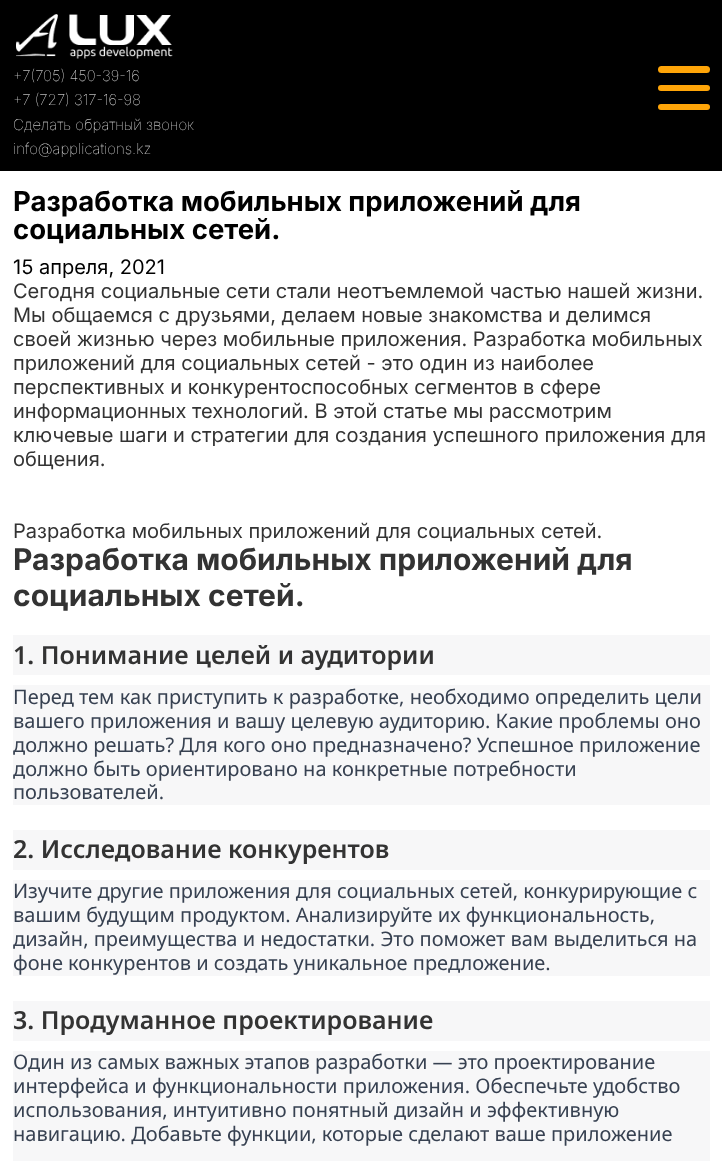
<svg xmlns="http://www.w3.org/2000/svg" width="722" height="1161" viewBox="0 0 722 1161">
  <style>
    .t1 { font: 100 15px Inter; fill: #fff; }
    .t2 { font: bold 27.5px Inter; fill: #000; }
    .t3 { font: 20px Inter; fill: #000; }
    .t4 { font: 20px Inter; fill: #333; }
    .t5 { font: bold 30px Inter; fill: #333; }
    .t6 { font: 600 25px Noto Sans; fill: #333; }
    .t7 { font: 20px Noto Sans; fill: #374151; }
  </style>
  <rect width="100%" height="100%" fill="#fff"/>
  <rect x="0" y="0" width="722" height="171" fill="#000"/>
  <image x="16" y="14" width="157" height="45" href="images/1.png"/>
  <text x="13" y="81" class="t1">+7(705) 450-39-16</text>
  <text x="13" y="105" class="t1">+7 (727) 317-16-98</text>
  <text x="13" y="130" class="t1">Сделать обратный звонок</text>
  <text x="13" y="154" class="t1">info@applications.kz</text>
  <rect x="658" y="66" width="52" height="7" rx="3.5" fill="#ffa508"/>
  <rect x="658" y="85" width="52" height="6" rx="3" fill="#ffa508"/>
  <rect x="658" y="104" width="52" height="6" rx="3" fill="#ffa508"/>
  <text x="13" y="211" class="t2">Разработка мобильных приложений для</text>
  <text x="13" y="239" class="t2">социальных сетей.</text>
  <text x="13" y="274" class="t3">15 апреля, 2021</text>
  <text x="13" y="298" class="t4">Сегодня социальные сети стали неотъемлемой частью нашей жизни.</text>
  <text x="13" y="322" class="t4">Мы общаемся с друзьями, делаем новые знакомства и делимся</text>
  <text x="13" y="346" class="t4">своей жизнью через мобильные приложения. Разработка мобильных</text>
  <text x="13" y="370" class="t4">приложений для социальных сетей - это один из наиболее</text>
  <text x="13" y="394" class="t4">перспективных и конкурентоспособных сегментов в сфере</text>
  <text x="13" y="418" class="t4">информационных технологий. В этой статье мы рассмотрим</text>
  <text x="13" y="442" class="t4">ключевые шаги и стратегии для создания успешного приложения для</text>
  <text x="13" y="466" class="t4">общения.</text>
  <text x="13" y="538" class="t4">Разработка мобильных приложений для социальных сетей.</text>
  <text x="13" y="570" class="t5">Разработка мобильных приложений для</text>
  <text x="13" y="606" class="t5">социальных сетей.</text>
  <rect x="13" y="635" width="697" height="40" fill="#f7f7f8"/>
  <text x="13" y="664" class="t6">1. Понимание целей и аудитории</text>
  <rect x="13" y="685" width="697" height="120" fill="#f7f7f8"/>
  <text x="13" y="704" class="t7">Перед тем как приступить к разработке, необходимо определить цели</text>
  <text x="13" y="728" class="t7">вашего приложения и вашу целевую аудиторию. Какие проблемы оно</text>
  <text x="13" y="752" class="t7">должно решать? Для кого оно предназначено? Успешное приложение</text>
  <text x="13" y="776" class="t7">должно быть ориентировано на конкретные потребности</text>
  <text x="13" y="799" class="t7">пользователей.</text>
  <rect x="13" y="830" width="697" height="40" fill="#f7f7f8"/>
  <text x="13" y="858" class="t6">2. Исследование конкурентов</text>
  <rect x="13" y="880" width="697" height="96" fill="#f7f7f8"/>
  <text x="13" y="898" class="t7">Изучите другие приложения для социальных сетей, конкурирующие с</text>
  <text x="13" y="922" class="t7">вашим будущим продуктом. Анализируйте их функциональность,</text>
  <text x="13" y="946" class="t7">дизайн, преимущества и недостатки. Это поможет вам выделиться на</text>
  <text x="13" y="970" class="t7">фоне конкурентов и создать уникальное предложение.</text>
  <rect x="13" y="1001" width="697" height="40" fill="#f7f7f8"/>
  <text x="13" y="1029" class="t6">3. Продуманное проектирование</text>
  <rect x="13" y="1051" width="697" height="110" fill="#f7f7f8"/>
  <text x="13" y="1069" class="t7">Один из самых важных этапов разработки — это проектирование</text>
  <text x="13" y="1093" class="t7">интерфейса и функциональности приложения. Обеспечьте удобство</text>
  <text x="13" y="1117" class="t7">использования, интуитивно понятный дизайн и эффективную</text>
  <text x="13" y="1141" class="t7">навигацию. Добавьте функции, которые сделают ваше приложение</text>
</svg>
